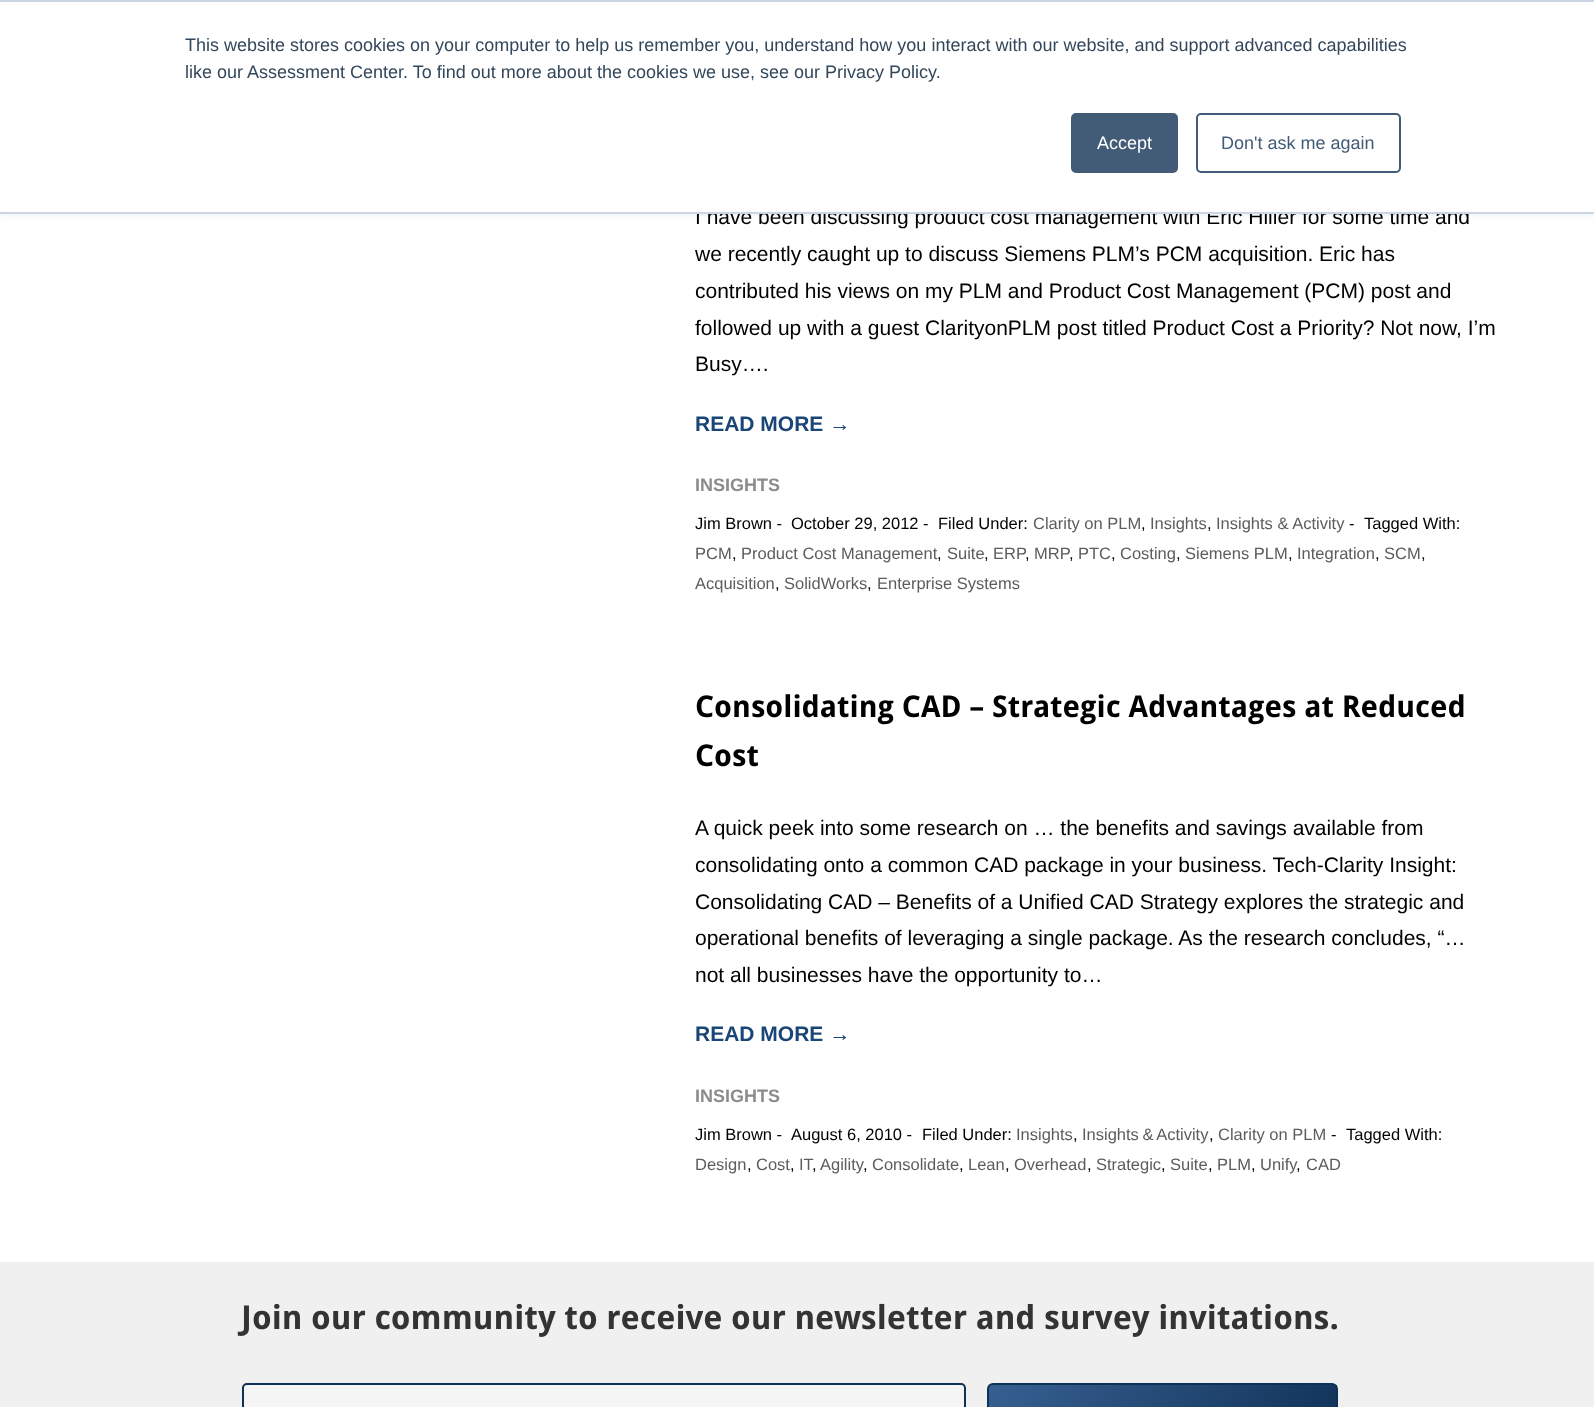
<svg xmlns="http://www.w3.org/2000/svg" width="1594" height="1407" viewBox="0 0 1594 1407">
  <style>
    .t1 { font: 21px Liberation Sans; fill: #000; }
    .t2 { font: 18px Liberation Sans; fill: #33475b; }
    .t3 { font: 18px Liberation Sans; fill: #fff; }
    .t4 { font: 18px Liberation Sans; fill: #425b76; }
    .t5 { font: bold 21px Liberation Sans; fill: #194577; }
    .t6 { font: bold 18px Liberation Sans; fill: #8c8c8c; }
    .t7 { font: 16.5px Liberation Sans; fill: #000; }
    .t8 { font: 16.5px Liberation Sans; fill: #5c5c5c; }
    .t9 { font: bold 30px Droid Sans; fill: #000; }
    .t10 { font: bold 33px Droid Sans; fill: #333; }
  </style>
  <defs>
    <clipPath id="clip1"><rect x="987" y="1383" width="351" height="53" rx="6"/></clipPath>
    <linearGradient id="g1" gradientUnits="userSpaceOnUse" x1="715" y1="1260" x2="914" y2="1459"><stop offset="0" stop-color="#376092"/><stop offset="1" stop-color="#0f3156"/></linearGradient>
    <linearGradient id="g2" gradientUnits="userSpaceOnUse" x1="1063" y1="1310" x2="1262" y2="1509"><stop offset="0" stop-color="#376092"/><stop offset="1" stop-color="#0f3156"/></linearGradient>
  </defs>
  <rect width="100%" height="100%" fill="#f0f0f0"/>
  <rect x="0" y="214" width="1594" height="1048" fill="#fff"/>
  <rect x="0" y="2" width="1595" height="213" fill="#eaf0f6" filter="blur(4px)"/>
  <text x="695" y="224" class="t1">I have been discussing product cost management with Eric Hiller for some time and</text>
  <rect x="0" y="2" width="1594" height="210" fill="#fff"/>
  <rect x="0" y="0" width="1594" height="2" fill="#cbd6e2"/>
  <rect x="0" y="212" width="1594" height="2" fill="#cbd6e2"/>
  <text x="185" y="51" class="t2">This website stores cookies on your computer to help us remember you, understand how you interact with our website, and support advanced capabilities</text>
  <text x="185" y="78" class="t2">like our Assessment Center. To find out more about the cookies we use, see our Privacy Policy.</text>
  <rect x="1072" y="114" width="105" height="58" rx="4" fill="#425b76" stroke="#425b76" stroke-width="2"/>
  <text x="1097" y="149" class="t3">Accept</text>
  <rect x="1197" y="114" width="203" height="58" rx="4" fill="none" stroke="#425b76" stroke-width="2"/>
  <text x="1221" y="149" class="t4">Don't ask me again</text>
  <text x="695" y="261" class="t1">we recently caught up to discuss Siemens PLM’s PCM acquisition. Eric has</text>
  <text x="695" y="298" class="t1">contributed his views on my PLM and Product Cost Management (PCM) post and</text>
  <text x="695" y="335" class="t1">followed up with a guest ClarityonPLM post titled Product Cost a Priority? Not now, I’m</text>
  <text x="695" y="371" class="t1">Busy….</text>
  <text x="695" y="431" class="t5">READ MORE →</text>
  <text x="695" y="491" class="t6">INSIGHTS</text>
  <text x="695" y="529" class="t7">Jim Brown -</text>
  <text x="791" y="529" class="t7">October 29, 2012 -</text>
  <text x="938" y="529" class="t7">Filed Under:</text>
  <text x="1033" y="529" class="t8">Clarity on PLM</text>
  <text x="1150" y="529" class="t8">Insights</text>
  <text x="1216" y="529" class="t8">Insights &amp; Activity</text>
  <text x="1349" y="529" class="t7">-</text>
  <text x="1364" y="529" class="t7">Tagged With:</text>
  <text x="1141" y="529" class="t7">,</text>
  <text x="1207" y="529" class="t7">,</text>
  <text x="695" y="559" class="t8">PCM</text>
  <text x="732" y="559" class="t7">,</text>
  <text x="741" y="559" class="t8">Product Cost Management</text>
  <text x="937" y="559" class="t7">,</text>
  <text x="947" y="559" class="t8">Suite</text>
  <text x="984" y="559" class="t7">,</text>
  <text x="993" y="559" class="t8">ERP</text>
  <text x="1025" y="559" class="t7">,</text>
  <text x="1034" y="559" class="t8">MRP</text>
  <text x="1078" y="559" class="t8">PTC</text>
  <text x="1120" y="559" class="t8">Costing</text>
  <text x="1185" y="559" class="t8">Siemens PLM</text>
  <text x="1297" y="559" class="t8">Integration</text>
  <text x="1384" y="559" class="t8">SCM</text>
  <text x="1069" y="559" class="t7">,</text>
  <text x="1111" y="559" class="t7">,</text>
  <text x="1176" y="559" class="t7">,</text>
  <text x="1288" y="559" class="t7">,</text>
  <text x="1375" y="559" class="t7">,</text>
  <text x="1421" y="559" class="t7">,</text>
  <text x="695" y="589" class="t8">Acquisition</text>
  <text x="775" y="589" class="t7">,</text>
  <text x="784" y="589" class="t8">SolidWorks</text>
  <text x="867" y="589" class="t7">,</text>
  <text x="877" y="589" class="t8">Enterprise Systems</text>
  <text x="695" y="717" class="t9">Consolidating CAD – Strategic Advantages at Reduced</text>
  <text x="695" y="766" class="t9">Cost</text>
  <text x="695" y="835" class="t1">A quick peek into some research on … the benefits and savings available from</text>
  <text x="695" y="872" class="t1">consolidating onto a common CAD package in your business. Tech-Clarity Insight:</text>
  <text x="695" y="909" class="t1">Consolidating CAD – Benefits of a Unified CAD Strategy explores the strategic and</text>
  <text x="695" y="945" class="t1">operational benefits of leveraging a single package. As the research concludes, “…</text>
  <text x="695" y="982" class="t1">not all businesses have the opportunity to…</text>
  <text x="695" y="1041" class="t5">READ MORE →</text>
  <text x="695" y="1102" class="t6">INSIGHTS</text>
  <text x="695" y="1140" class="t7">Jim Brown -</text>
  <text x="791" y="1140" class="t7">August 6, 2010 -</text>
  <text x="922" y="1140" class="t7">Filed Under:</text>
  <text x="1016" y="1140" class="t8">Insights</text>
  <text x="1082" y="1140" word-spacing="-1" class="t8">Insights &amp; Activity</text>
  <text x="1218" y="1140" class="t8">Clarity on PLM</text>
  <text x="1331" y="1140" class="t7">-</text>
  <text x="1346" y="1140" class="t7">Tagged With:</text>
  <text x="1073" y="1140" class="t7">,</text>
  <text x="1209" y="1140" class="t7">,</text>
  <text x="695" y="1170" class="t8">Design</text>
  <text x="747" y="1170" class="t7">,</text>
  <text x="756" y="1170" class="t8">Cost</text>
  <text x="790" y="1170" class="t7">,</text>
  <text x="799" y="1170" class="t8">IT</text>
  <text x="820" y="1170" class="t8">Agility</text>
  <text x="872" y="1170" class="t8">Consolidate</text>
  <text x="968" y="1170" class="t8">Lean</text>
  <text x="1014" y="1170" class="t8">Overhead</text>
  <text x="1096" y="1170" class="t8">Strategic</text>
  <text x="1170" y="1170" class="t8">Suite</text>
  <text x="1217" y="1170" class="t8">PLM</text>
  <text x="1260" y="1170" class="t8">Unify</text>
  <text x="1306" y="1170" class="t8">CAD</text>
  <text x="812" y="1170" class="t7">,</text>
  <text x="863" y="1170" class="t7">,</text>
  <text x="959" y="1170" class="t7">,</text>
  <text x="1005" y="1170" class="t7">,</text>
  <text x="1087" y="1170" class="t7">,</text>
  <text x="1161" y="1170" class="t7">,</text>
  <text x="1208" y="1170" class="t7">,</text>
  <text x="1251" y="1170" class="t7">,</text>
  <text x="1296" y="1170" class="t7">,</text>
  <text x="241" y="1329" class="t10">Join our community to receive our newsletter and survey invitations.</text>
  <rect x="243" y="1384" width="722" height="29" rx="4" fill="#f5f5f5" stroke="#0f3156" stroke-width="2"/>
  <g clip-path="url(#clip1)">
    <rect x="987" y="1384" width="2" height="1" fill="url(#g1)"/>
  </g>
  <rect x="989" y="1385" width="348" height="22" fill="url(#g2)"/>
  <rect x="988" y="1384" width="349" height="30" rx="5" fill="none" stroke="#0f3156" stroke-width="2"/>
</svg>
